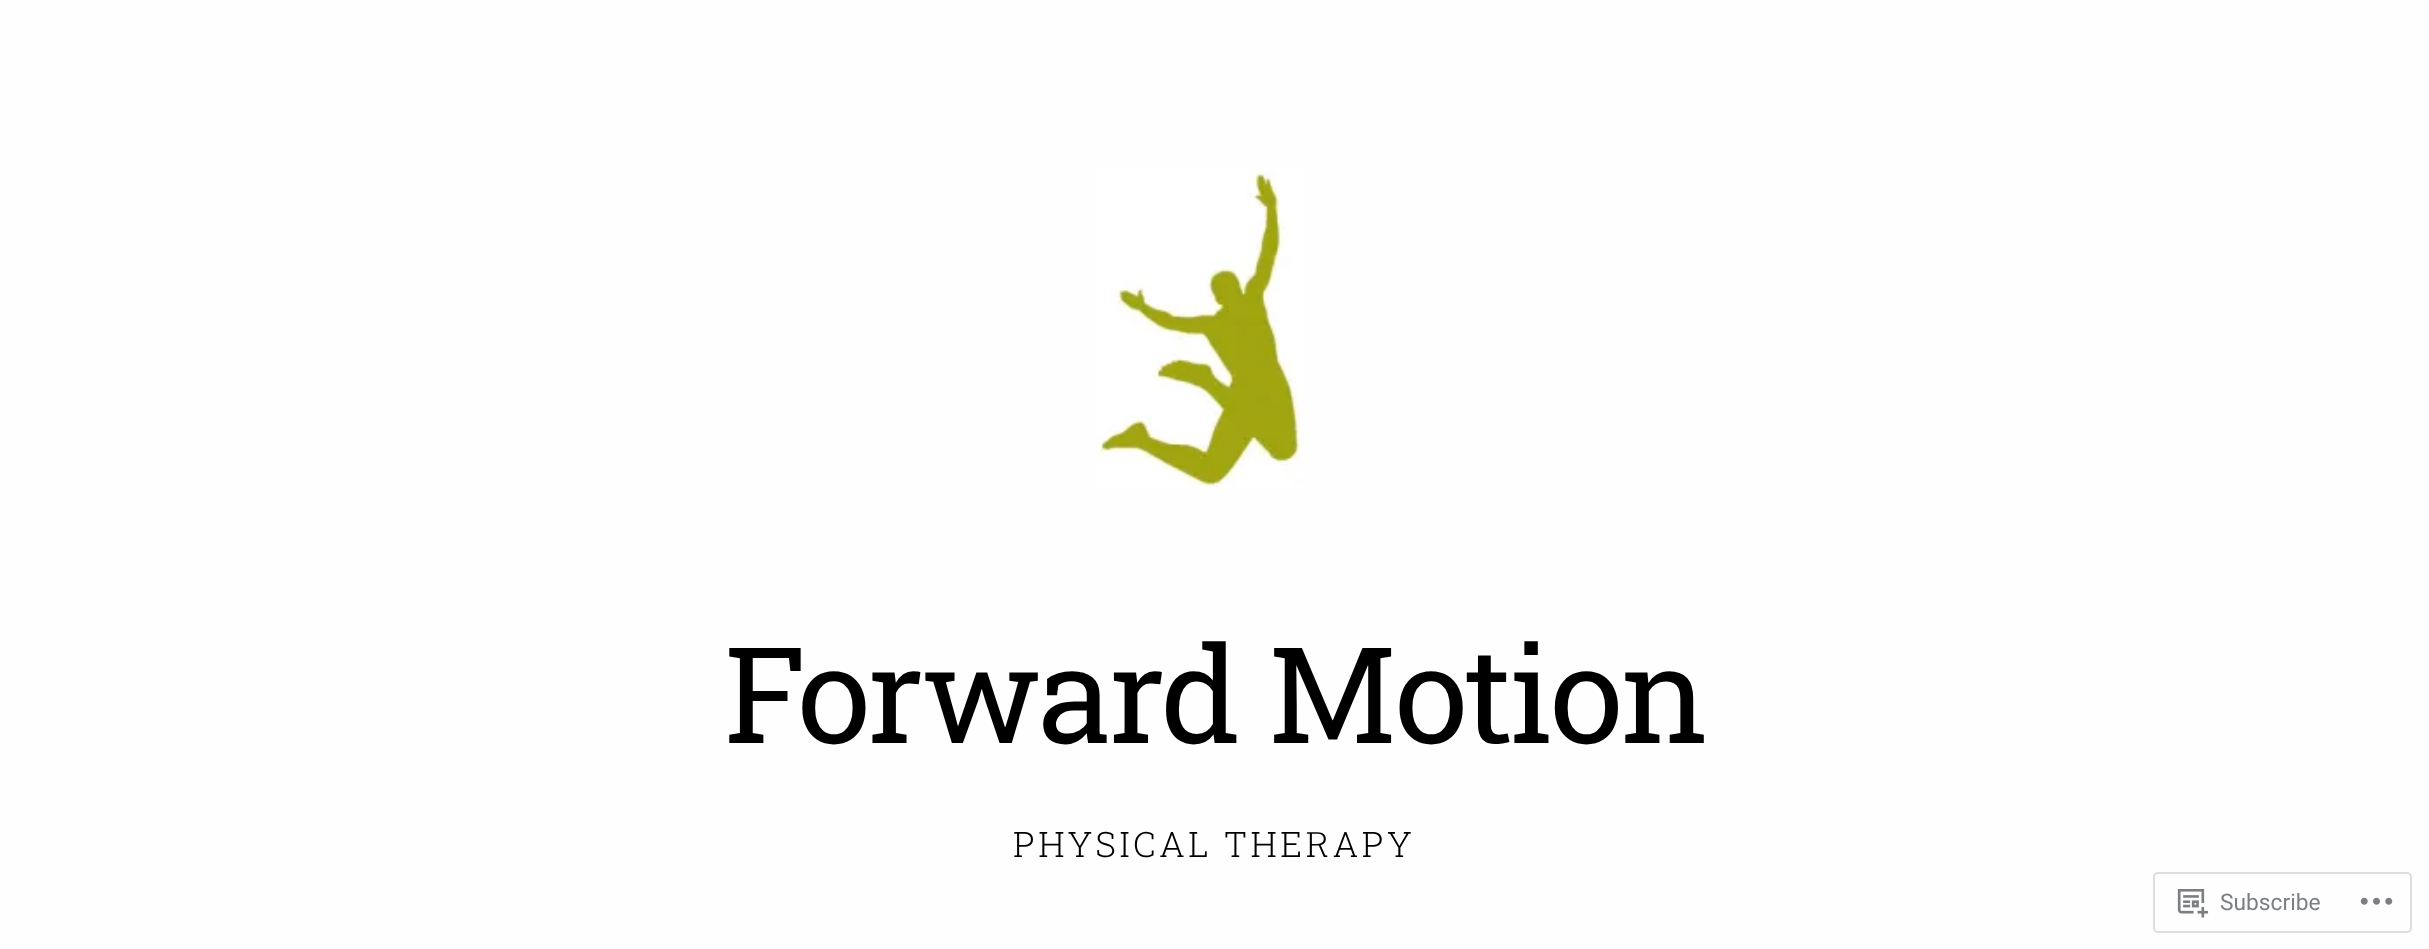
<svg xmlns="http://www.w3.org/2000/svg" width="2429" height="949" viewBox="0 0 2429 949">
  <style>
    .t1 { font: 133.5px Roboto Slab; letter-spacing: -2.7px; fill: #000; }
    .t2 { font: 300 35px Roboto Slab; letter-spacing: 3.5px; fill: #000; }
    .t3 { font: 22.75px Roboto; fill: #7b7f84; }
  </style>
  <rect width="100%" height="100%" fill="#fefefe"/>
  <image x="1096" y="168" width="209" height="320" href="images/1.png"/>
  <text x="724" y="743" class="t1">Forward Motion</text>
  <text x="1013" y="857" class="t2">PHYSICAL THERAPY</text>
  <rect x="2154" y="873" width="257" height="59" rx="4" fill="none" stroke="#dddddf" stroke-width="2"/>
  <image x="2177" y="889" width="32" height="29" href="images/2.png"/>
  <text x="2220" y="910" class="t3">Subscribe</text>
  <image x="2360" y="897" width="33" height="8" href="images/3.png"/>
</svg>
